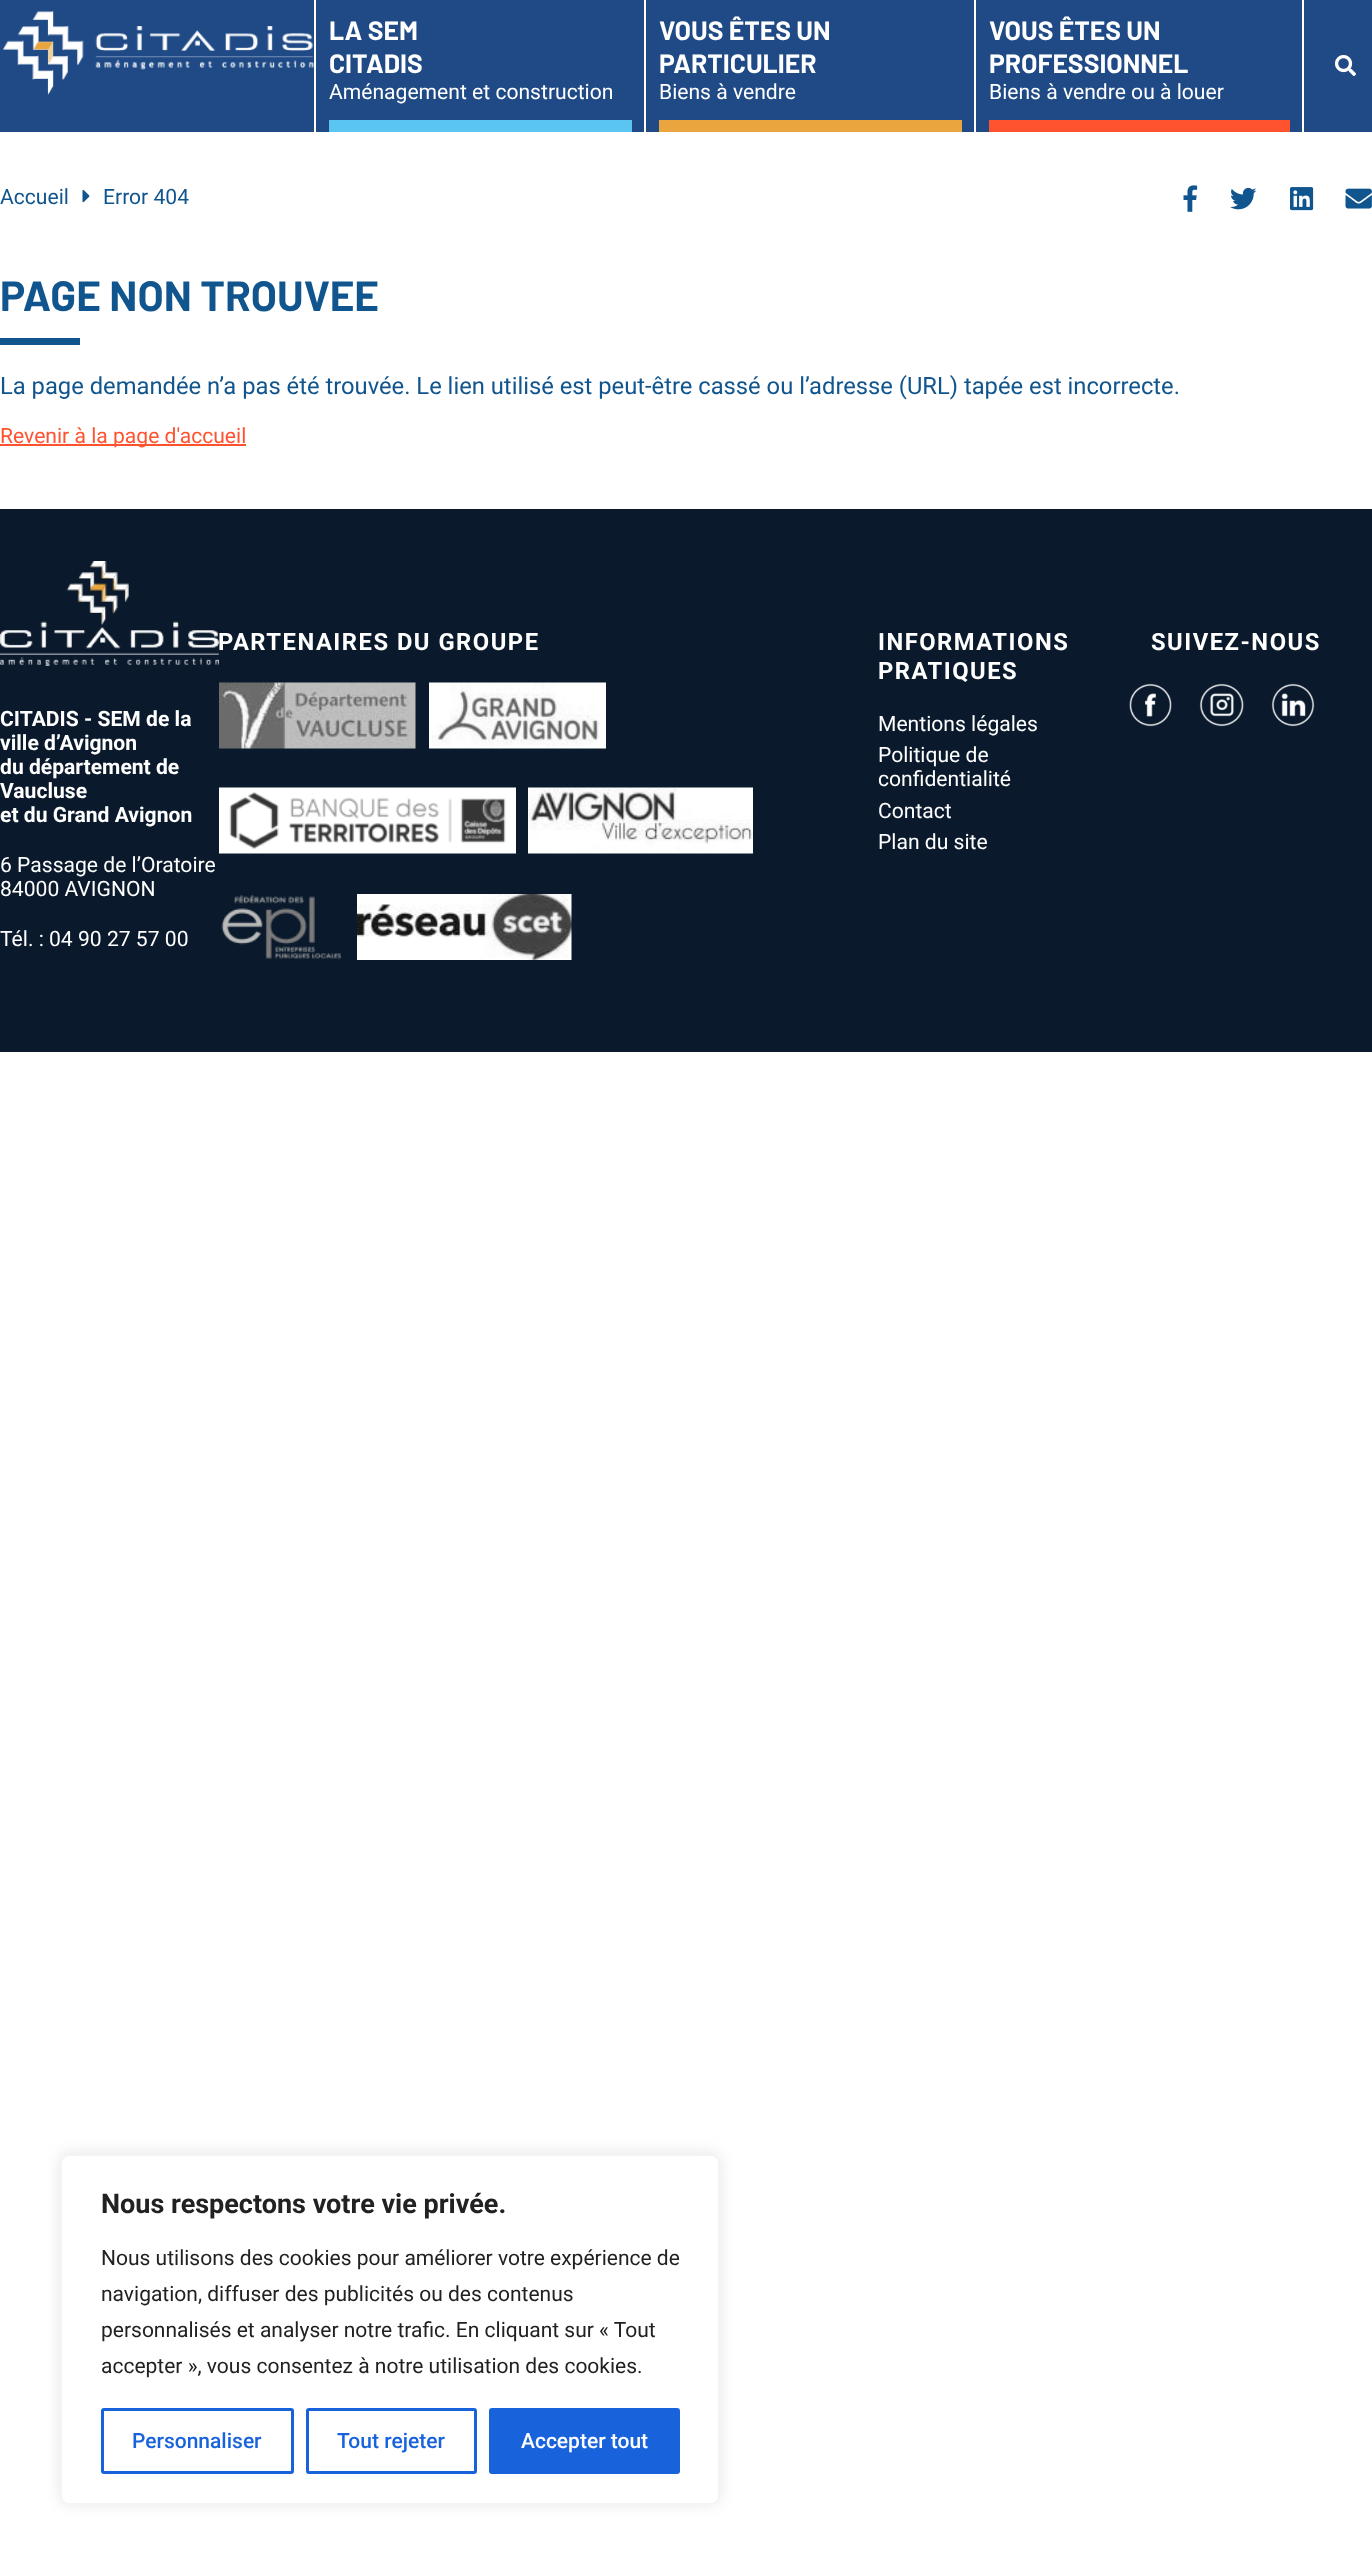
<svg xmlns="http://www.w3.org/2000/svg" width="1372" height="2565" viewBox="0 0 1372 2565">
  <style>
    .t1 { font: bold 26.5px Barlow; fill: #fff; }
    .t2 { font: 21.1px Roboto; fill: #fff; }
    .t3 { font: 21.1px Roboto; fill: #11558e; }
    .t4 { font: bold 42.25px Barlow; fill: #11558e; }
    .t5 { font: 23.75px Roboto; fill: #11558e; }
    .t6 { font: 21.1px Roboto; fill: #ff5330; }
    .t7 { font: bold 23.75px Roboto; letter-spacing: 1.5px; fill: #fff; }
    .t8 { font: bold 21.1px Roboto; fill: #fff; }
    .t9 { font: bold 27px Roboto; fill: #212121; }
    .t10 { font: 21px Roboto; fill: #212121; }
    .t11 { font: 500 21px Roboto; fill: #1863dc; }
    .t12 { font: 500 21px Roboto; fill: #fff; }
  </style>
  <rect width="100%" height="100%" fill="#fff"/>
  <rect x="0" y="0" width="1372" height="132" fill="#1f4a86"/>
  <image x="3" y="10" width="311" height="85" href="images/1.png"/>
  <rect x="314" y="0" width="2" height="132" fill="#fff"/>
  <rect x="329" y="120" width="303" height="12" fill="#5bc5f2"/>
  <text x="329" y="40" class="t1">LA SEM</text>
  <text x="329" y="73" class="t1">CITADIS</text>
  <text x="329" y="99" class="t2">Aménagement et construction</text>
  <rect x="644" y="0" width="2" height="132" fill="#fff"/>
  <rect x="659" y="120" width="303" height="12" fill="#eba53e"/>
  <text x="659" y="40" class="t1">VOUS ÊTES UN</text>
  <text x="659" y="73" class="t1">PARTICULIER</text>
  <text x="659" y="99" class="t2">Biens à vendre</text>
  <rect x="1302" y="0" width="2" height="132" fill="#fff"/>
  <rect x="974" y="0" width="2" height="132" fill="#fff"/>
  <rect x="989" y="120" width="301" height="12" fill="#ff5330"/>
  <text x="989" y="40" class="t1">VOUS ÊTES UN</text>
  <text x="989" y="73" class="t1">PROFESSIONNEL</text>
  <text x="989" y="99" class="t2">Biens à vendre ou à louer</text>
  <image x="1334" y="55" width="22" height="22" href="images/2.png"/>
  <text x="0" y="204" class="t3">Accueil</text>
  <image x="82" y="190" width="8" height="13" href="images/3.png"/>
  <text x="103" y="204" class="t3">Error 404</text>
  <image x="1183" y="185" width="15" height="27" href="images/4.png"/>
  <image x="1230" y="187" width="27" height="23" href="images/5.png"/>
  <image x="1290" y="187" width="24" height="24" href="images/6.png"/>
  <image x="1345" y="188" width="27" height="21" href="images/7.png"/>
  <text x="0" y="311" class="t4">PAGE NON TROUVEE</text>
  <rect x="0" y="338" width="80" height="7" fill="#11558e"/>
  <text x="0" y="394" class="t5">La page demandée n’a pas été trouvée. Le lien utilisé est peut-être cassé ou l’adresse (URL) tapée est incorrecte.</text>
  <rect x="0" y="444" width="246" height="2" fill="#ff5330"/>
  <text x="0" y="443" class="t6">Revenir à la page d'accueil</text>
  <rect x="0" y="509" width="1372" height="543" fill="#0a1a2c"/>
  <text x="218" y="650" class="t7">PARTENAIRES DU GROUPE</text>
  <image x="219" y="682" width="197" height="67" href="images/8.png"/>
  <image x="429" y="682" width="177" height="67" href="images/9.png"/>
  <image x="219" y="787" width="297" height="67" href="images/10.png"/>
  <image x="528" y="787" width="225" height="67" href="images/11.png"/>
  <image x="221" y="895" width="121" height="65" href="images/12.png"/>
  <image x="357" y="894" width="215" height="66" href="images/13.png"/>
  <text x="878" y="650" class="t7">INFORMATIONS</text>
  <text x="878" y="679" class="t7">PRATIQUES</text>
  <text x="878" y="731" class="t2">Mentions légales</text>
  <text x="878" y="762" class="t2">Politique de</text>
  <text x="878" y="786" class="t2">confidentialité</text>
  <text x="878" y="818" class="t2">Contact</text>
  <text x="878" y="849" class="t2">Plan du site</text>
  <text x="1151" y="650" class="t7">SUIVEZ-NOUS</text>
  <image x="1129" y="683" width="43" height="44" href="images/14.png"/>
  <image x="1199" y="683" width="45" height="44" href="images/15.png"/>
  <image x="1271" y="683" width="44" height="44" href="images/16.png"/>
  <image x="0" y="561" width="219" height="105" href="images/17.png"/>
  <text x="0" y="726" class="t8">CITADIS - SEM de la</text>
  <text x="0" y="750" class="t8">ville d’Avignon</text>
  <text x="0" y="774" class="t8">du département de</text>
  <text x="0" y="798" class="t8">Vaucluse</text>
  <text x="0" y="822" class="t8">et du Grand Avignon</text>
  <text x="0" y="872" class="t2">6 Passage de l’Oratoire</text>
  <text x="0" y="896" class="t2">84000 AVIGNON</text>
  <text x="0" y="946" class="t2">Tél. : 04 90 27 57 00</text>
  <rect x="60" y="2153" width="660" height="351" rx="9" fill="#acabab4d" filter="blur(7.5px)"/>
  <rect x="61" y="2155" width="658" height="349" rx="8" fill="#fff" stroke="#f4f4f4" stroke-width="2"/>
  <text x="101" y="2213" class="t9">Nous respectons votre vie privée.</text>
  <text x="101" y="2265" class="t10">Nous utilisons des cookies pour améliorer votre expérience de</text>
  <text x="101" y="2301" class="t10">navigation, diffuser des publicités ou des contenus</text>
  <text x="101" y="2337" class="t10">personnalisés et analyser notre trafic. En cliquant sur « Tout</text>
  <text x="101" y="2373" class="t10">accepter », vous consentez à notre utilisation des cookies.</text>
  <rect x="102.5" y="2409.5" width="190" height="63" rx="1.5" fill="none" stroke="#1863dc" stroke-width="3"/>
  <text x="132" y="2448" class="t11">Personnaliser</text>
  <rect x="307.5" y="2409.5" width="168" height="63" rx="1.5" fill="none" stroke="#1863dc" stroke-width="3"/>
  <text x="337" y="2448" class="t11">Tout rejeter</text>
  <rect x="490.5" y="2409.5" width="188" height="63" rx="1.5" fill="#1863dc" stroke="#1863dc" stroke-width="3"/>
  <text x="521" y="2448" class="t12">Accepter tout</text>
</svg>
